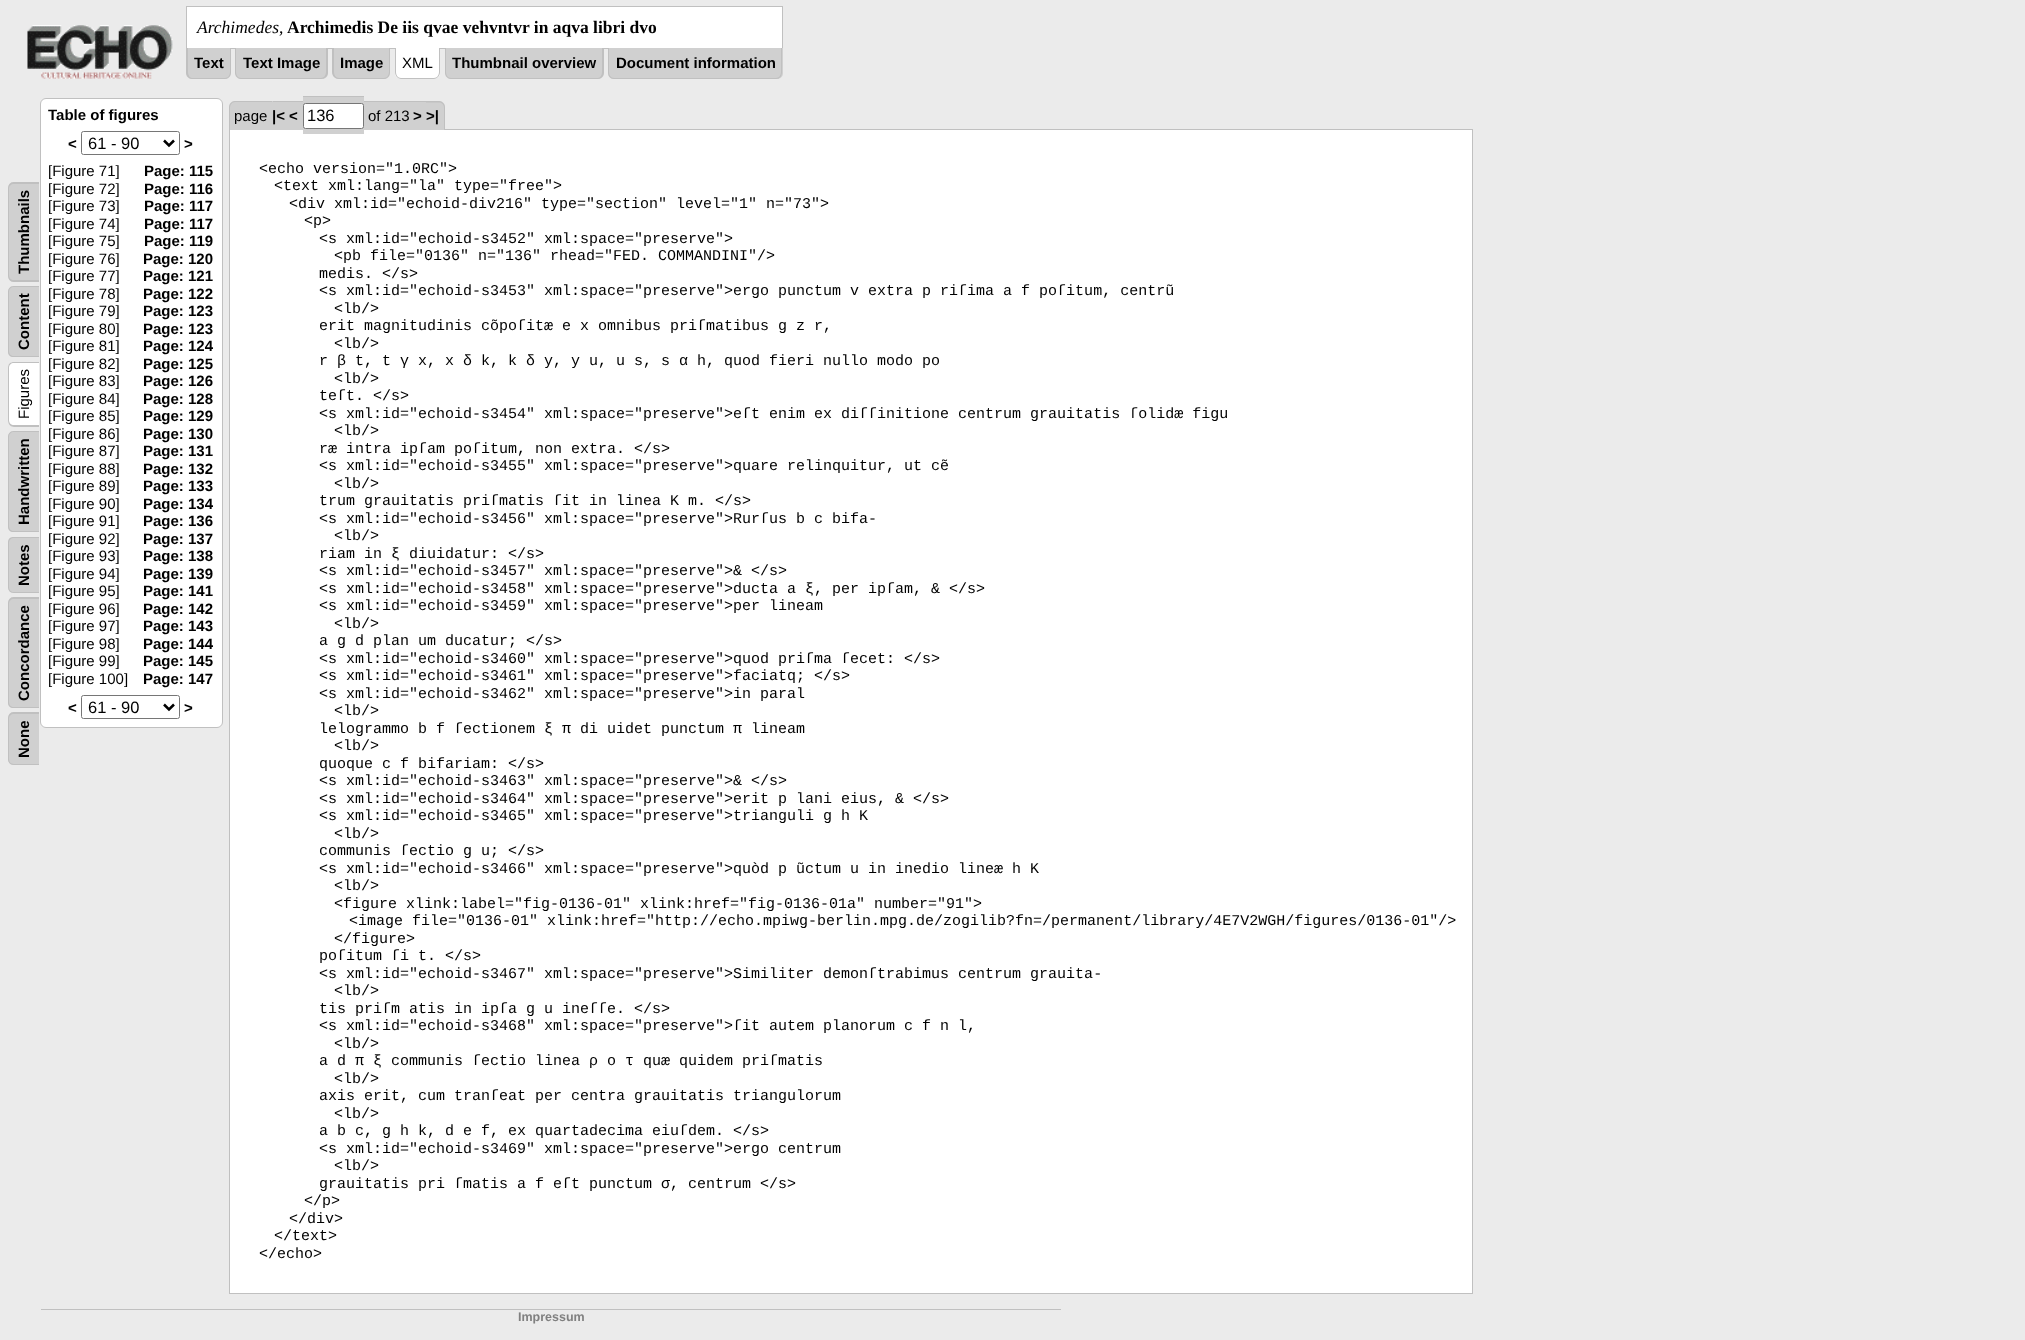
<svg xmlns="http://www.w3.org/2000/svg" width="2025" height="1340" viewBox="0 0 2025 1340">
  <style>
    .t1 { font: italic 17.5px Liberation Serif; fill: #000; }
    .t2 { font: 17.5px Liberation Serif; fill: #000; }
    .t3 { font: bold 17.5px Liberation Serif; fill: #000; }
    .t4 { font: bold 15px Liberation Sans; fill: #000; }
    .t5 { font: 15px Liberation Sans; fill: #000; }
    .t6 { font: 16.5px Liberation Sans; fill: #000; }
    .t7 { font: 15px Liberation Mono; fill: #000; }
    .t8 { font: bold 12.5px Liberation Sans; fill: #808080; }
  </style>
  <rect width="100%" height="100%" fill="#ebebeb"/>
  <image x="27" y="25" width="146" height="54" href="images/1.png"/>
  <rect x="186.5" y="6.5" width="596" height="42" fill="#fff" stroke="#c0c0c0"/>
  <text x="197" y="33" class="t1">Archimedes</text>
  <text x="279" y="33" class="t2">,</text>
  <text x="287" y="33" class="t3">Archimedis De iis qvae vehvntvr in aqva libri dvo</text>
  <path d="M186 48H231V73C231 76.5 228.5 79 225 79H192C188.5 79 186 76.5 186 73Z" fill="#d0d0d0"/>
  <path d="M186 48H231V72C231 76 228 79 225 79H192C189 79 186 76 186 72ZM188 48H230V72C230 75 228 78 225 78H192C190 78 188 75 188 72Z" fill="#c0c0c0" fill-rule="evenodd"/>
  <text x="194" y="68" class="t4">Text</text>
  <path d="M235 48H328V73C328 76.5 325.5 79 322 79H241C237.5 79 235 76.5 235 73Z" fill="#d0d0d0"/>
  <path d="M235 48H328V72C328 76 325 79 321 79H241C238 79 235 76 235 72ZM236 48H326V72C326 75 324 78 321 78H241C238 78 236 75 236 72Z" fill="#c0c0c0" fill-rule="evenodd"/>
  <text x="243" y="68" class="t4">Text Image</text>
  <path d="M333 48H390V73C390 76.5 387.5 79 384 79H339C335.5 79 333 76.5 333 73Z" fill="#d0d0d0"/>
  <path d="M332 48H390V72C390 76 387 79 384 79H339C335 79 332 76 332 72ZM334 48H389V72C389 75 387 78 384 78H339C336 78 334 75 334 72Z" fill="#c0c0c0" fill-rule="evenodd"/>
  <text x="340" y="68" class="t4">Image</text>
  <path d="M395 48H440V73C440 76.5 437.5 79 434 79H401C397.5 79 395 76.5 395 73Z" fill="#fff"/>
  <path d="M395 48H440V72C440 76 437 79 434 79H401C398 79 395 76 395 72ZM396 48H439V72C439 75 437 78 434 78H401C398 78 396 75 396 72Z" fill="#c0c0c0" fill-rule="evenodd"/>
  <text x="402" y="68" class="t5">XML</text>
  <path d="M445 48H604V73C604 76.5 601.5 79 598 79H451C447.5 79 445 76.5 445 73Z" fill="#d0d0d0"/>
  <path d="M445 48H604V72C604 76 601 79 598 79H451C448 79 445 76 445 72ZM446 48H602V72C602 75 600 78 598 78H451C448 78 446 75 446 72Z" fill="#c0c0c0" fill-rule="evenodd"/>
  <text x="452" y="68" class="t4">Thumbnail overview</text>
  <path d="M608 48H783V73C783 76.5 780.5 79 777 79H614C610.5 79 608 76.5 608 73Z" fill="#d0d0d0"/>
  <path d="M608 48H782V72C782 76 780 79 776 79H614C610 79 608 76 608 72ZM609 48H781V72C781 75 779 78 776 78H614C611 78 609 75 609 72Z" fill="#c0c0c0" fill-rule="evenodd"/>
  <text x="616" y="68" class="t4">Document information</text>
  <path d="M8 275V189C8 185 10 182 14 182H39V282H14C10 282 8 279 8 275Z" fill="#d0d0d0"/>
  <path d="M8 275V189C8 185 10 182 14 182H39V282H14C10 282 8 279 8 275ZM9 275V189C9 186 11 184 14 184H39V280H14C11 280 9 278 9 275Z" fill="#c0c0c0" fill-rule="evenodd"/>
  <text x="29" y="274" transform="rotate(-90 29 274)" class="t4">Thumbnails</text>
  <path d="M8 351V292C8 289 10 286 14 286H39V357H14C10 357 8 355 8 351Z" fill="#d0d0d0"/>
  <path d="M8 351V292C8 289 10 286 14 286H39V357H14C10 357 8 355 8 351ZM9 351V292C9 289 11 287 14 287H39V356H14C11 356 9 354 9 351Z" fill="#c0c0c0" fill-rule="evenodd"/>
  <text x="29" y="350" transform="rotate(-90 29 350)" class="t4">Content</text>
  <path d="M8 420V368C8 364 10 362 14 362H39V427H14C10 427 8 424 8 420Z" fill="#fff"/>
  <path d="M8 420V368C8 364 10 362 14 362H39V427H14C10 427 8 424 8 420ZM9 420V368C9 365 11 363 14 363H39V425H14C11 425 9 423 9 420Z" fill="#c0c0c0" fill-rule="evenodd"/>
  <text x="29" y="419" transform="rotate(-90 29 419)" class="t5">Figures</text>
  <path d="M8 526V437C8 434 10 431 14 431H39V532H14C10 532 8 530 8 526Z" fill="#d0d0d0"/>
  <path d="M8 526V437C8 434 10 431 14 431H39V532H14C10 532 8 530 8 526ZM9 526V437C9 434 11 432 14 432H39V531H14C11 531 9 529 9 526Z" fill="#c0c0c0" fill-rule="evenodd"/>
  <text x="29" y="525" transform="rotate(-90 29 525)" class="t4">Handwritten</text>
  <path d="M8 587V543C8 539 10 537 14 537H39V593H14C10 593 8 590 8 587Z" fill="#d0d0d0"/>
  <path d="M8 587V543C8 539 10 537 14 537H39V593H14C10 593 8 590 8 587ZM9 587V543C9 540 11 538 14 538H39V592H14C11 592 9 590 9 587Z" fill="#c0c0c0" fill-rule="evenodd"/>
  <text x="29" y="586" transform="rotate(-90 29 586)" class="t4">Notes</text>
  <path d="M8 702V604C8 600 10 597 14 597H39V708H14C10 708 8 706 8 702Z" fill="#d0d0d0"/>
  <path d="M8 702V604C8 600 10 597 14 597H39V708H14C10 708 8 706 8 702ZM9 702V604C9 601 11 599 14 599H39V707H14C11 707 9 705 9 702Z" fill="#c0c0c0" fill-rule="evenodd"/>
  <text x="29" y="701" transform="rotate(-90 29 701)" class="t4">Concordance</text>
  <path d="M8 759V719C8 715 10 712 14 712H39V765H14C10 765 8 762 8 759Z" fill="#d0d0d0"/>
  <path d="M8 759V719C8 715 10 712 14 712H39V765H14C10 765 8 762 8 759ZM9 759V719C9 716 11 714 14 714H39V764H14C11 764 9 762 9 759Z" fill="#c0c0c0" fill-rule="evenodd"/>
  <text x="29" y="758" transform="rotate(-90 29 758)" class="t4">None</text>
  <rect x="40.5" y="98.5" width="182" height="629" rx="5.5" fill="#fff" stroke="#c0c0c0"/>
  <text x="48" y="120" class="t4">Table of figures</text>
  <text x="68" y="149" class="t4">&lt;</text>
  <rect x="81.5" y="131.5" width="98" height="23" rx="2" fill="none" stroke="#767676"/>
  <path d="M164 140.5L169 145.5L174 140.5" fill="none" stroke="#000" stroke-width="2.5"/>
  <text x="88" y="149" class="t6">61 - 90</text>
  <text x="184" y="149" class="t4">&gt;</text>
  <text x="48" y="176" class="t5">[Figure 71]</text>
  <text x="144" y="176" class="t4">Page: 115</text>
  <text x="48" y="194" class="t5">[Figure 72]</text>
  <text x="144" y="194" class="t4">Page: 116</text>
  <text x="48" y="211" class="t5">[Figure 73]</text>
  <text x="144" y="211" class="t4">Page: 117</text>
  <text x="48" y="229" class="t5">[Figure 74]</text>
  <text x="144" y="229" class="t4">Page: 117</text>
  <text x="48" y="246" class="t5">[Figure 75]</text>
  <text x="144" y="246" class="t4">Page: 119</text>
  <text x="48" y="264" class="t5">[Figure 76]</text>
  <text x="143" y="264" class="t4">Page: 120</text>
  <text x="48" y="281" class="t5">[Figure 77]</text>
  <text x="143" y="281" class="t4">Page: 121</text>
  <text x="48" y="299" class="t5">[Figure 78]</text>
  <text x="143" y="299" class="t4">Page: 122</text>
  <text x="48" y="316" class="t5">[Figure 79]</text>
  <text x="143" y="316" class="t4">Page: 123</text>
  <text x="48" y="334" class="t5">[Figure 80]</text>
  <text x="143" y="334" class="t4">Page: 123</text>
  <text x="48" y="351" class="t5">[Figure 81]</text>
  <text x="143" y="351" class="t4">Page: 124</text>
  <text x="48" y="369" class="t5">[Figure 82]</text>
  <text x="143" y="369" class="t4">Page: 125</text>
  <text x="48" y="386" class="t5">[Figure 83]</text>
  <text x="143" y="386" class="t4">Page: 126</text>
  <text x="48" y="404" class="t5">[Figure 84]</text>
  <text x="143" y="404" class="t4">Page: 128</text>
  <text x="48" y="421" class="t5">[Figure 85]</text>
  <text x="143" y="421" class="t4">Page: 129</text>
  <text x="48" y="439" class="t5">[Figure 86]</text>
  <text x="143" y="439" class="t4">Page: 130</text>
  <text x="48" y="456" class="t5">[Figure 87]</text>
  <text x="143" y="456" class="t4">Page: 131</text>
  <text x="48" y="474" class="t5">[Figure 88]</text>
  <text x="143" y="474" class="t4">Page: 132</text>
  <text x="48" y="491" class="t5">[Figure 89]</text>
  <text x="143" y="491" class="t4">Page: 133</text>
  <text x="48" y="509" class="t5">[Figure 90]</text>
  <text x="143" y="509" class="t4">Page: 134</text>
  <text x="48" y="526" class="t5">[Figure 91]</text>
  <text x="143" y="526" class="t4">Page: 136</text>
  <text x="48" y="544" class="t5">[Figure 92]</text>
  <text x="143" y="544" class="t4">Page: 137</text>
  <text x="48" y="561" class="t5">[Figure 93]</text>
  <text x="143" y="561" class="t4">Page: 138</text>
  <text x="48" y="579" class="t5">[Figure 94]</text>
  <text x="143" y="579" class="t4">Page: 139</text>
  <text x="48" y="596" class="t5">[Figure 95]</text>
  <text x="143" y="596" class="t4">Page: 141</text>
  <text x="48" y="614" class="t5">[Figure 96]</text>
  <text x="143" y="614" class="t4">Page: 142</text>
  <text x="48" y="631" class="t5">[Figure 97]</text>
  <text x="143" y="631" class="t4">Page: 143</text>
  <text x="48" y="649" class="t5">[Figure 98]</text>
  <text x="143" y="649" class="t4">Page: 144</text>
  <text x="48" y="666" class="t5">[Figure 99]</text>
  <text x="143" y="666" class="t4">Page: 145</text>
  <text x="48" y="684" class="t5">[Figure 100]</text>
  <text x="143" y="684" class="t4">Page: 147</text>
  <text x="68" y="713" class="t4">&lt;</text>
  <rect x="81.5" y="695.5" width="98" height="23" rx="2" fill="none" stroke="#767676"/>
  <path d="M164 704.5L169 709.5L174 704.5" fill="none" stroke="#000" stroke-width="2.5"/>
  <text x="88" y="713" class="t6">61 - 90</text>
  <text x="184" y="713" class="t4">&gt;</text>
  <rect x="229.5" y="129.5" width="1243" height="1164" fill="#fff" stroke="#c0c0c0"/>
  <path d="M235 101H273V130H229V107C229 103.5 231.5 101 235 101Z" fill="#d0d0d0"/>
  <path d="M235 101H272V130H229V108C229 104 232 101 235 101ZM235 102H272V130H230V108C230 105 232 102 235 102Z" fill="#c0c0c0" fill-rule="evenodd"/>
  <rect x="273" y="102" width="12" height="28" fill="#d0d0d0"/>
  <rect x="273" y="101" width="12" height="1" fill="#c0c0c0"/>
  <rect x="285" y="101" width="4" height="29" fill="#d0d0d0"/>
  <rect x="285" y="101" width="13" height="1" fill="#c0c0c0"/>
  <rect x="289" y="102" width="9" height="28" fill="#d0d0d0"/>
  <rect x="298" y="101" width="5" height="29" fill="#d0d0d0"/>
  <rect x="298" y="101" width="5" height="1" fill="#c0c0c0"/>
  <rect x="303" y="97" width="61" height="37" fill="#d0d0d0"/>
  <rect x="303" y="96" width="61" height="1" fill="#c0c0c0"/>
  <rect x="364" y="101" width="4" height="29" fill="#d0d0d0"/>
  <rect x="364" y="101" width="59" height="1" fill="#c0c0c0"/>
  <rect x="368" y="102" width="55" height="28" fill="#d0d0d0"/>
  <rect x="423" y="101" width="3" height="29" fill="#d0d0d0"/>
  <rect x="423" y="101" width="4" height="1" fill="#c0c0c0"/>
  <path d="M426 101H439C442.5 101 445 103.5 445 107V130H426Z" fill="#d0d0d0"/>
  <path d="M426 101H439C442 101 445 104 445 107.5V130H426ZM426 102.5H439C441.5 102.5 444 104.5 444 107.5V130H426Z" fill="#c0c0c0" fill-rule="evenodd"/>
  <text x="234" y="121" class="t5">page</text>
  <text x="272" y="121" class="t4">|&lt; &lt;</text>
  <rect x="303.5" y="103.5" width="60" height="25" rx="2" fill="#fff" stroke="#767676"/>
  <text x="307" y="121" class="t6">136</text>
  <text x="368" y="121" class="t5">of 213</text>
  <text x="413" y="121" class="t4">&gt; &gt;|</text>
  <text x="259" y="173" class="t7">&lt;echo version="1.0RC"&gt;</text>
  <text x="274" y="190" class="t7">&lt;text xml:lang="la" type="free"&gt;</text>
  <text x="289" y="208" class="t7">&lt;div xml:id="echoid-div216" type="section" level="1" n="73"&gt;</text>
  <text x="304" y="225" class="t7">&lt;p&gt;</text>
  <text x="319" y="243" class="t7">&lt;s xml:id="echoid-s3452" xml:space="preserve"&gt;</text>
  <text x="334" y="260" class="t7">&lt;pb file="0136" n="136" rhead="FED. COMMANDINI"/&gt;</text>
  <text x="319" y="278" class="t7">medis. &lt;/s&gt;</text>
  <text x="319" y="295" class="t7">&lt;s xml:id="echoid-s3453" xml:space="preserve"&gt;ergo punctum v extra p riſima a f poſitum, centrũ</text>
  <text x="334" y="313" class="t7">&lt;lb/&gt;</text>
  <text x="319" y="330" class="t7">erit magnitudinis cõpoſitæ e x omnibus priſmatibus g z r,</text>
  <text x="334" y="348" class="t7">&lt;lb/&gt;</text>
  <text x="319" y="365" class="t7">r β t, t γ x, x δ k, k δ y, y u, u s, s α h, quod fieri nullo modo po</text>
  <text x="334" y="383" class="t7">&lt;lb/&gt;</text>
  <text x="319" y="400" class="t7">teſt. &lt;/s&gt;</text>
  <text x="319" y="418" class="t7">&lt;s xml:id="echoid-s3454" xml:space="preserve"&gt;eſt enim ex diſſinitione centrum grauitatis ſolidæ figu</text>
  <text x="334" y="435" class="t7">&lt;lb/&gt;</text>
  <text x="319" y="453" class="t7">ræ intra ipſam poſitum, non extra. &lt;/s&gt;</text>
  <text x="319" y="470" class="t7">&lt;s xml:id="echoid-s3455" xml:space="preserve"&gt;quare relinquitur, ut cẽ</text>
  <text x="334" y="488" class="t7">&lt;lb/&gt;</text>
  <text x="319" y="505" class="t7">trum grauitatis priſmatis ſit in linea K m. &lt;/s&gt;</text>
  <text x="319" y="523" class="t7">&lt;s xml:id="echoid-s3456" xml:space="preserve"&gt;Rurſus b c bifa-</text>
  <text x="334" y="540" class="t7">&lt;lb/&gt;</text>
  <text x="319" y="558" class="t7">riam in ξ diuidatur: &lt;/s&gt;</text>
  <text x="319" y="575" class="t7">&lt;s xml:id="echoid-s3457" xml:space="preserve"&gt;&amp; &lt;/s&gt;</text>
  <text x="319" y="593" class="t7">&lt;s xml:id="echoid-s3458" xml:space="preserve"&gt;ducta a ξ, per ipſam, &amp; &lt;/s&gt;</text>
  <text x="319" y="610" class="t7">&lt;s xml:id="echoid-s3459" xml:space="preserve"&gt;per lineam</text>
  <text x="334" y="628" class="t7">&lt;lb/&gt;</text>
  <text x="319" y="645" class="t7">a g d plan um ducatur; &lt;/s&gt;</text>
  <text x="319" y="663" class="t7">&lt;s xml:id="echoid-s3460" xml:space="preserve"&gt;quod priſma ſecet: &lt;/s&gt;</text>
  <text x="319" y="680" class="t7">&lt;s xml:id="echoid-s3461" xml:space="preserve"&gt;faciatq; &lt;/s&gt;</text>
  <text x="319" y="698" class="t7">&lt;s xml:id="echoid-s3462" xml:space="preserve"&gt;in paral</text>
  <text x="334" y="715" class="t7">&lt;lb/&gt;</text>
  <text x="319" y="733" class="t7">lelogrammo b f ſectionem ξ π di uidet punctum π lineam</text>
  <text x="334" y="750" class="t7">&lt;lb/&gt;</text>
  <text x="319" y="768" class="t7">quoque c f bifariam: &lt;/s&gt;</text>
  <text x="319" y="785" class="t7">&lt;s xml:id="echoid-s3463" xml:space="preserve"&gt;&amp; &lt;/s&gt;</text>
  <text x="319" y="803" class="t7">&lt;s xml:id="echoid-s3464" xml:space="preserve"&gt;erit p lani eius, &amp; &lt;/s&gt;</text>
  <text x="319" y="820" class="t7">&lt;s xml:id="echoid-s3465" xml:space="preserve"&gt;trianguli g h K</text>
  <text x="334" y="838" class="t7">&lt;lb/&gt;</text>
  <text x="319" y="855" class="t7">communis ſectio g u; &lt;/s&gt;</text>
  <text x="319" y="873" class="t7">&lt;s xml:id="echoid-s3466" xml:space="preserve"&gt;quòd p ũctum u in inedio lineæ h K</text>
  <text x="334" y="890" class="t7">&lt;lb/&gt;</text>
  <text x="334" y="908" class="t7">&lt;figure xlink:label="fig-0136-01" xlink:href="fig-0136-01a" number="91"&gt;</text>
  <text x="349" y="925" class="t7">&lt;image file="0136-01" xlink:href="http://echo.mpiwg-berlin.mpg.de/zogilib?fn=/permanent/library/4E7V2WGH/figures/0136-01"/&gt;</text>
  <text x="334" y="943" class="t7">&lt;/figure&gt;</text>
  <text x="319" y="960" class="t7">poſitum ſi t. &lt;/s&gt;</text>
  <text x="319" y="978" class="t7">&lt;s xml:id="echoid-s3467" xml:space="preserve"&gt;Similiter demonſtrabimus centrum grauita-</text>
  <text x="334" y="995" class="t7">&lt;lb/&gt;</text>
  <text x="319" y="1013" class="t7">tis priſm atis in ipſa g u ineſſe. &lt;/s&gt;</text>
  <text x="319" y="1030" class="t7">&lt;s xml:id="echoid-s3468" xml:space="preserve"&gt;ſit autem planorum c f n l,</text>
  <text x="334" y="1048" class="t7">&lt;lb/&gt;</text>
  <text x="319" y="1065" class="t7">a d π ξ communis ſectio linea ρ ο τ quæ quidem priſmatis</text>
  <text x="334" y="1083" class="t7">&lt;lb/&gt;</text>
  <text x="319" y="1100" class="t7">axis erit, cum tranſeat per centra grauitatis triangulorum</text>
  <text x="334" y="1118" class="t7">&lt;lb/&gt;</text>
  <text x="319" y="1135" class="t7">a b c, g h k, d e f, ex quartadecima eiuſdem. &lt;/s&gt;</text>
  <text x="319" y="1153" class="t7">&lt;s xml:id="echoid-s3469" xml:space="preserve"&gt;ergo centrum</text>
  <text x="334" y="1170" class="t7">&lt;lb/&gt;</text>
  <text x="319" y="1188" class="t7">grauitatis pri ſmatis a f eſt punctum σ, centrum &lt;/s&gt;</text>
  <text x="304" y="1205" class="t7">&lt;/p&gt;</text>
  <text x="289" y="1223" class="t7">&lt;/div&gt;</text>
  <text x="274" y="1240" class="t7">&lt;/text&gt;</text>
  <text x="259" y="1258" class="t7">&lt;/echo&gt;</text>
  <rect x="41" y="1309" width="1020" height="1" fill="#c0c0c0"/>
  <text x="518" y="1321" class="t8">Impressum</text>
</svg>
